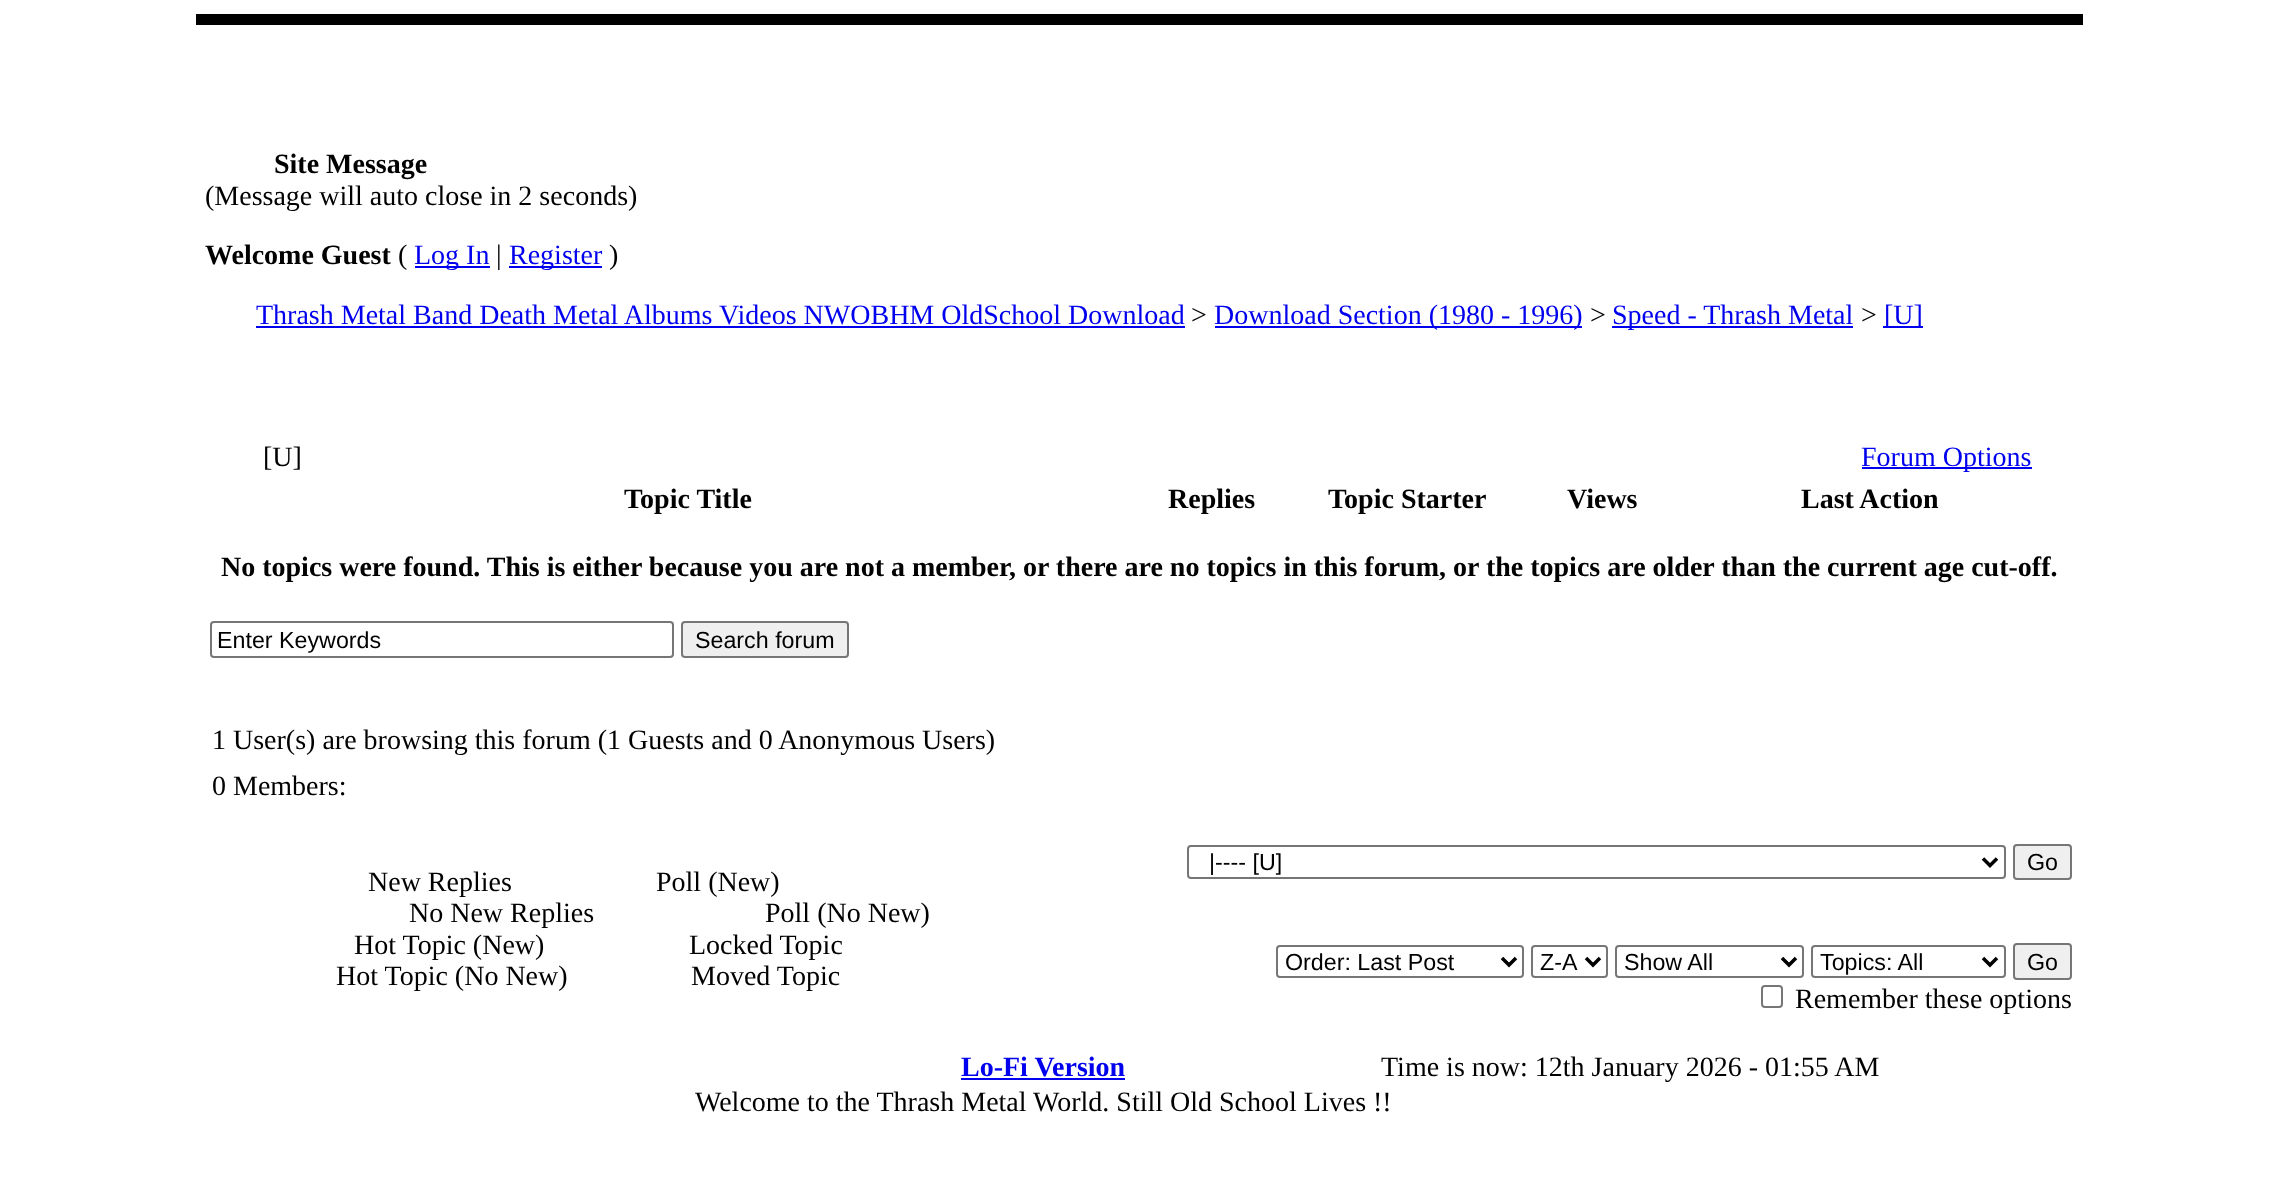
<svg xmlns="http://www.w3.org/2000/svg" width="2278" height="1189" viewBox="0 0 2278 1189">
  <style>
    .t1 { font: bold 28px Liberation Serif; fill: #000; }
    .t2 { font: 28px Liberation Serif; fill: #000; }
    .t3 { font: 28px Liberation Serif; fill: #00e; }
    .t4 { font: 23.25px Liberation Sans; fill: #000; }
    .t5 { font: bold 28px Liberation Serif; fill: #00e; }
  </style>
  <rect width="100%" height="100%" fill="#fff"/>
  <rect x="196" y="14" width="1887" height="11" fill="#000"/>
  <text x="274" y="173" class="t1">Site Message</text>
  <text x="205" y="205" class="t2">(Message will auto close in 2 seconds)</text>
  <text x="205" y="264" class="t1">Welcome Guest</text>
  <text x="398" y="264" class="t2">(</text>
  <rect x="415" y="266" width="75" height="2" fill="#00e"/>
  <text x="414" y="264" class="t3">Log In</text>
  <text x="496" y="264" class="t2">|</text>
  <rect x="509" y="266" width="93" height="2" fill="#00e"/>
  <text x="509" y="264" class="t3">Register</text>
  <text x="609" y="264" class="t2">)</text>
  <text x="256" y="324" class="t3">Thrash Metal Band Death Metal Albums Videos NWOBHM OldSchool Download</text>
  <rect x="256" y="326" width="929" height="2" fill="#00e"/>
  <text x="1191" y="324" class="t2">&gt;</text>
  <rect x="1215" y="326" width="367" height="2" fill="#00e"/>
  <text x="1214" y="324" class="t3">Download Section (1980 - 1996)</text>
  <text x="1590" y="324" class="t2">&gt;</text>
  <rect x="1612" y="326" width="241" height="2" fill="#00e"/>
  <text x="1612" y="324" class="t3">Speed - Thrash Metal</text>
  <text x="1861" y="324" class="t2">&gt;</text>
  <rect x="1883" y="326" width="40" height="2" fill="#00e"/>
  <text x="1884" y="324" class="t3">[U]</text>
  <text x="263" y="466" class="t2">[U]</text>
  <rect x="1862" y="467" width="170" height="2" fill="#00e"/>
  <text x="1861" y="466" class="t3">Forum Options</text>
  <text x="624" y="508" class="t1">Topic Title</text>
  <text x="1168" y="508" class="t1">Replies</text>
  <text x="1328" y="508" class="t1">Topic Starter</text>
  <text x="1567" y="508" class="t1">Views</text>
  <text x="1801" y="508" class="t1">Last Action</text>
  <text x="221" y="576" class="t1">No topics were found. This is either because you are not a member, or there are no topics in this forum, or the topics are older than the current age cut-off.</text>
  <rect x="211" y="622" width="462" height="35" rx="3" fill="none" stroke="#767676" stroke-width="2"/>
  <text x="217" y="648" class="t4">Enter Keywords</text>
  <rect x="682" y="622" width="166" height="35" rx="3" fill="#efefef" stroke="#767676" stroke-width="2"/>
  <text x="695" y="648" class="t4">Search forum</text>
  <text x="212" y="749" class="t2">1 User(s) are browsing this forum (1 Guests and 0 Anonymous Users)</text>
  <text x="212" y="795" class="t2">0 Members:</text>
  <text x="368" y="891" class="t2">New Replies</text>
  <text x="409" y="922" class="t2">No New Replies</text>
  <text x="354" y="954" class="t2">Hot Topic (New)</text>
  <text x="336" y="985" class="t2">Hot Topic (No New)</text>
  <text x="656" y="891" class="t2">Poll (New)</text>
  <text x="765" y="922" class="t2">Poll (No New)</text>
  <text x="689" y="954" class="t2">Locked Topic</text>
  <text x="691" y="985" class="t2">Moved Topic</text>
  <rect x="1188" y="846" width="817" height="32" rx="3" fill="none" stroke="#767676" stroke-width="2"/>
  <path d="M1983 858.5L1990 865.5L1997 858.5" fill="none" stroke="#000" stroke-width="3.5"/>
  <text x="1209" y="870" class="t4">|---- [U]</text>
  <rect x="2014" y="845" width="57" height="34" rx="3" fill="#efefef" stroke="#767676" stroke-width="2"/>
  <text x="2027" y="870" class="t4">Go</text>
  <rect x="1277" y="946" width="246" height="31" rx="3" fill="none" stroke="#767676" stroke-width="2"/>
  <path d="M1502 958L1509 965L1516 958" fill="none" stroke="#000" stroke-width="3.5"/>
  <text x="1285" y="970" class="t4">Order: Last Post</text>
  <rect x="1532" y="946" width="75" height="31" rx="3" fill="none" stroke="#767676" stroke-width="2"/>
  <path d="M1586 958L1593 965L1600 958" fill="none" stroke="#000" stroke-width="3.5"/>
  <text x="1540" y="970" class="t4">Z-A</text>
  <rect x="1616" y="946" width="187" height="31" rx="3" fill="none" stroke="#767676" stroke-width="2"/>
  <path d="M1782 958L1789 965L1796 958" fill="none" stroke="#000" stroke-width="3.5"/>
  <text x="1624" y="970" class="t4">Show All</text>
  <rect x="1812" y="946" width="193" height="31" rx="3" fill="none" stroke="#767676" stroke-width="2"/>
  <path d="M1983 958L1990 965L1997 958" fill="none" stroke="#000" stroke-width="3.5"/>
  <text x="1820" y="970" class="t4">Topics: All</text>
  <rect x="2014" y="944" width="57" height="35" rx="3" fill="#efefef" stroke="#767676" stroke-width="2"/>
  <text x="2027" y="970" class="t4">Go</text>
  <rect x="1762" y="986" width="20" height="21" rx="3" fill="none" stroke="#767676" stroke-width="2"/>
  <text x="1795" y="1008" class="t2">Remember these options</text>
  <text x="961" y="1076" class="t5">Lo-Fi Version</text>
  <rect x="961" y="1078" width="164" height="2" fill="#00e"/>
  <text x="1381" y="1076" class="t2">Time is now: 12th January 2026 - 01:55 AM</text>
  <text x="695" y="1111" class="t2">Welcome to the Thrash Metal World. Still Old School Lives !!</text>
</svg>
